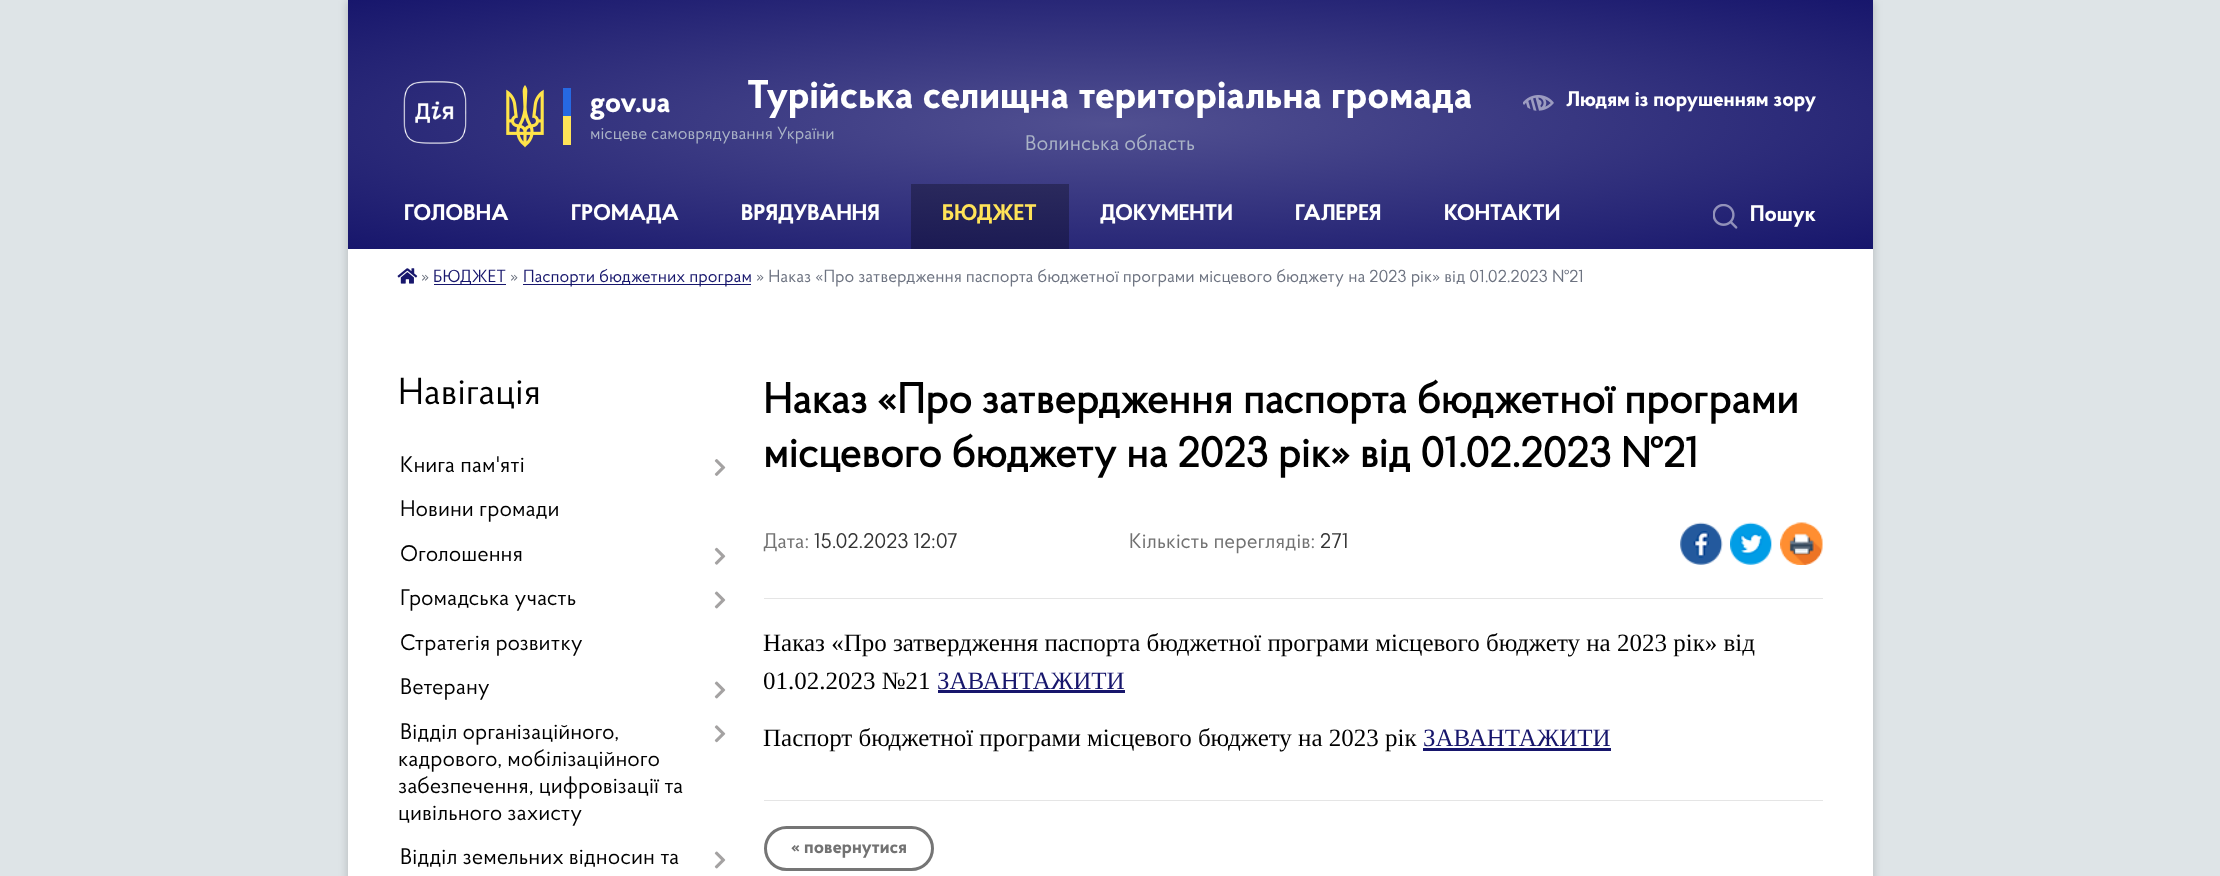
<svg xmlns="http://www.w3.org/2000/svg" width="2220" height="876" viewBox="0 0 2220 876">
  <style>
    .t1 { font: bold 30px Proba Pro; fill: #fff; }
    .t2 { font: 17.5px Proba Pro; fill: #aab3c6; }
    .t3 { font: bold 40px Proba Pro; fill: #fff; }
    .t4 { font: 21.25px Proba Pro; fill: #aab3c6; }
    .t5 { font: bold 21.25px Proba Pro; fill: #fff; }
    .t6 { font: bold 22.5px Proba Pro; fill: #fff; }
    .t7 { font: bold 22.5px Proba Pro; fill: #ffe358; }
    .t8 { font: 17.5px Proba Pro; fill: #6d7381; }
    .t9 { font: 17.5px Proba Pro; fill: #17166c; }
    .t10 { font: 37.5px Proba Pro; fill: #000; }
    .t11 { font: 22.5px Proba Pro; fill: #000; }
    .t12 { font: bold 42.5px 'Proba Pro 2'; fill: #000; }
    .t13 { font: 21.25px Proba Pro; fill: #727272; }
    .t14 { font: 21.25px Proba Pro; fill: #333; }
    .t15 { font: 25px Liberation Serif; fill: #000; }
    .t16 { font: 25px Liberation Serif; fill: #17166c; }
    .t17 { font: bold 18.75px Proba Pro; fill: #727272; }
  </style>
  <defs>
    <radialGradient id="g1" gradientUnits="userSpaceOnUse" cx="0" cy="0" r="1" gradientTransform="matrix(1078 0 0 176 1110 124)"><stop offset="0" stop-color="#515091"/><stop offset="1" stop-color="#17166c"/></radialGradient>
    <radialGradient id="g2" gradientUnits="userSpaceOnUse" cx="0" cy="0" r="1" gradientTransform="matrix(1078 0 0 176 1110 124)"><stop offset="0" stop-color="#393866"/><stop offset="1" stop-color="#100f4c"/></radialGradient>
  </defs>
  <rect width="100%" height="100%" fill="#dee4e7"/>
  <rect x="348" y="1" width="1525" height="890" fill="#00000033" filter="blur(5px)"/>
  <rect x="348" y="249" width="1525" height="627" fill="#fff"/>
  <rect x="348" y="0" width="1525" height="249" fill="url(#g1)"/>
  <rect x="911" y="184" width="158" height="65" fill="url(#g2)"/>
  <image x="403" y="81" width="64" height="63" href="images/1.png"/>
  <image x="506" y="85" width="38" height="63" href="images/2.png"/>
  <rect x="563" y="88" width="8" height="28" fill="#2669e3"/>
  <rect x="563" y="116" width="8" height="29" fill="#ffe358"/>
  <text x="590" y="112" class="t1">gov.ua</text>
  <text x="590" y="139" class="t2">місцеве самоврядування України</text>
  <text x="747" y="108" class="t3">Турійська селищна територіальна громада</text>
  <text x="1025" y="150" class="t4">Волинська область</text>
  <image x="1523" y="95" width="31" height="16" href="images/3.png"/>
  <text x="1566" y="106" class="t5">Людям із порушенням зору</text>
  <text x="404" y="220" class="t6">ГОЛОВНА</text>
  <text x="571" y="220" class="t6">ГРОМАДА</text>
  <text x="741" y="220" class="t6">ВРЯДУВАННЯ</text>
  <text x="942" y="220" class="t7">БЮДЖЕТ</text>
  <text x="1100" y="220" class="t6">ДОКУМЕНТИ</text>
  <text x="1295" y="220" class="t6">ГАЛЕРЕЯ</text>
  <text x="1444" y="220" class="t6">КОНТАКТИ</text>
  <image x="1713" y="204" width="25" height="25" href="images/4.png"/>
  <text x="1750" y="221" class="t6">Пошук</text>
  <image x="397" y="268" width="21" height="16" href="images/5.png"/>
  <text x="421" y="282" class="t8">»</text>
  <rect x="434" y="284" width="72" height="1" fill="#17166c"/>
  <text x="433" y="282" class="t9">БЮДЖЕТ</text>
  <text x="510" y="282" class="t8">»</text>
  <rect x="523" y="284" width="228" height="1" fill="#17166c"/>
  <text x="523" y="282" class="t9">Паспорти бюджетних програм</text>
  <text x="756" y="282" class="t8">» Наказ «Про затвердження паспорта бюджетної програми місцевого бюджету на 2023 рік» від 01.02.2023 №21</text>
  <text x="398" y="404" class="t10">Навігація</text>
  <text x="400" y="472" class="t11">Книга пам'яті</text>
  <image x="714" y="459" width="12" height="17" href="images/6.png"/>
  <text x="400" y="516" class="t11">Новини громади</text>
  <text x="400" y="561" class="t11">Оголошення</text>
  <image x="714" y="547" width="12" height="18" href="images/7.png"/>
  <text x="400" y="605" class="t11">Громадська участь</text>
  <image x="714" y="591" width="12" height="18" href="images/8.png"/>
  <text x="400" y="650" class="t11">Стратегія розвитку</text>
  <text x="400" y="694" class="t11">Ветерану</text>
  <image x="714" y="681" width="12" height="18" href="images/8.png"/>
  <text x="400" y="739" class="t11">Відділ організаційного,</text>
  <text x="398" y="766" class="t11">кадрового, мобілізаційного</text>
  <text x="398" y="793" class="t11">забезпечення, цифровізації та</text>
  <text x="398" y="820" class="t11">цивільного захисту</text>
  <image x="714" y="725" width="12" height="18" href="images/9.png"/>
  <text x="400" y="864" class="t11">Відділ земельних відносин та</text>
  <image x="714" y="851" width="12" height="18" href="images/8.png"/>
  <text x="763" y="413" class="t12">Наказ «Про затвердження паспорта бюджетної програми</text>
  <text x="763" y="467" class="t12">місцевого бюджету на 2023 рік» від 01.02.2023 №21</text>
  <text x="763" y="548" class="t13">Дата:</text>
  <text x="814" y="548" class="t14">15.02.2023 12:07</text>
  <text x="1129" y="548" class="t13">Кількість переглядів:</text>
  <text x="1320" y="548" class="t14">271</text>
  <image x="1680" y="522" width="43" height="43" href="images/10.png"/>
  <image x="1730" y="522" width="42" height="43" href="images/11.png"/>
  <image x="1780" y="522" width="43" height="43" href="images/12.png"/>
  <rect x="764" y="598" width="1059" height="1" fill="#e5e5e5"/>
  <text x="763" y="651" class="t15">Наказ «Про затвердження паспорта бюджетної програми місцевого бюджету на 2023 рік» від</text>
  <text x="763" y="689" class="t15">01.02.2023 №21</text>
  <text x="937" y="689" class="t16">ЗАВАНТАЖИТИ</text>
  <rect x="938" y="690" width="187" height="3" fill="#17166c"/>
  <text x="763" y="746" class="t15">Паспорт бюджетної програми місцевого бюджету на 2023 рік</text>
  <text x="1423" y="746" class="t16">ЗАВАНТАЖИТИ</text>
  <rect x="1423" y="748" width="188" height="3" fill="#17166c"/>
  <rect x="764" y="800" width="1059" height="1" fill="#e5e5e5"/>
  <rect x="765.5" y="827.5" width="167" height="42" rx="21" fill="none" stroke="#757575" stroke-width="3"/>
  <text x="791" y="853" class="t17">« повернутися</text>
</svg>
